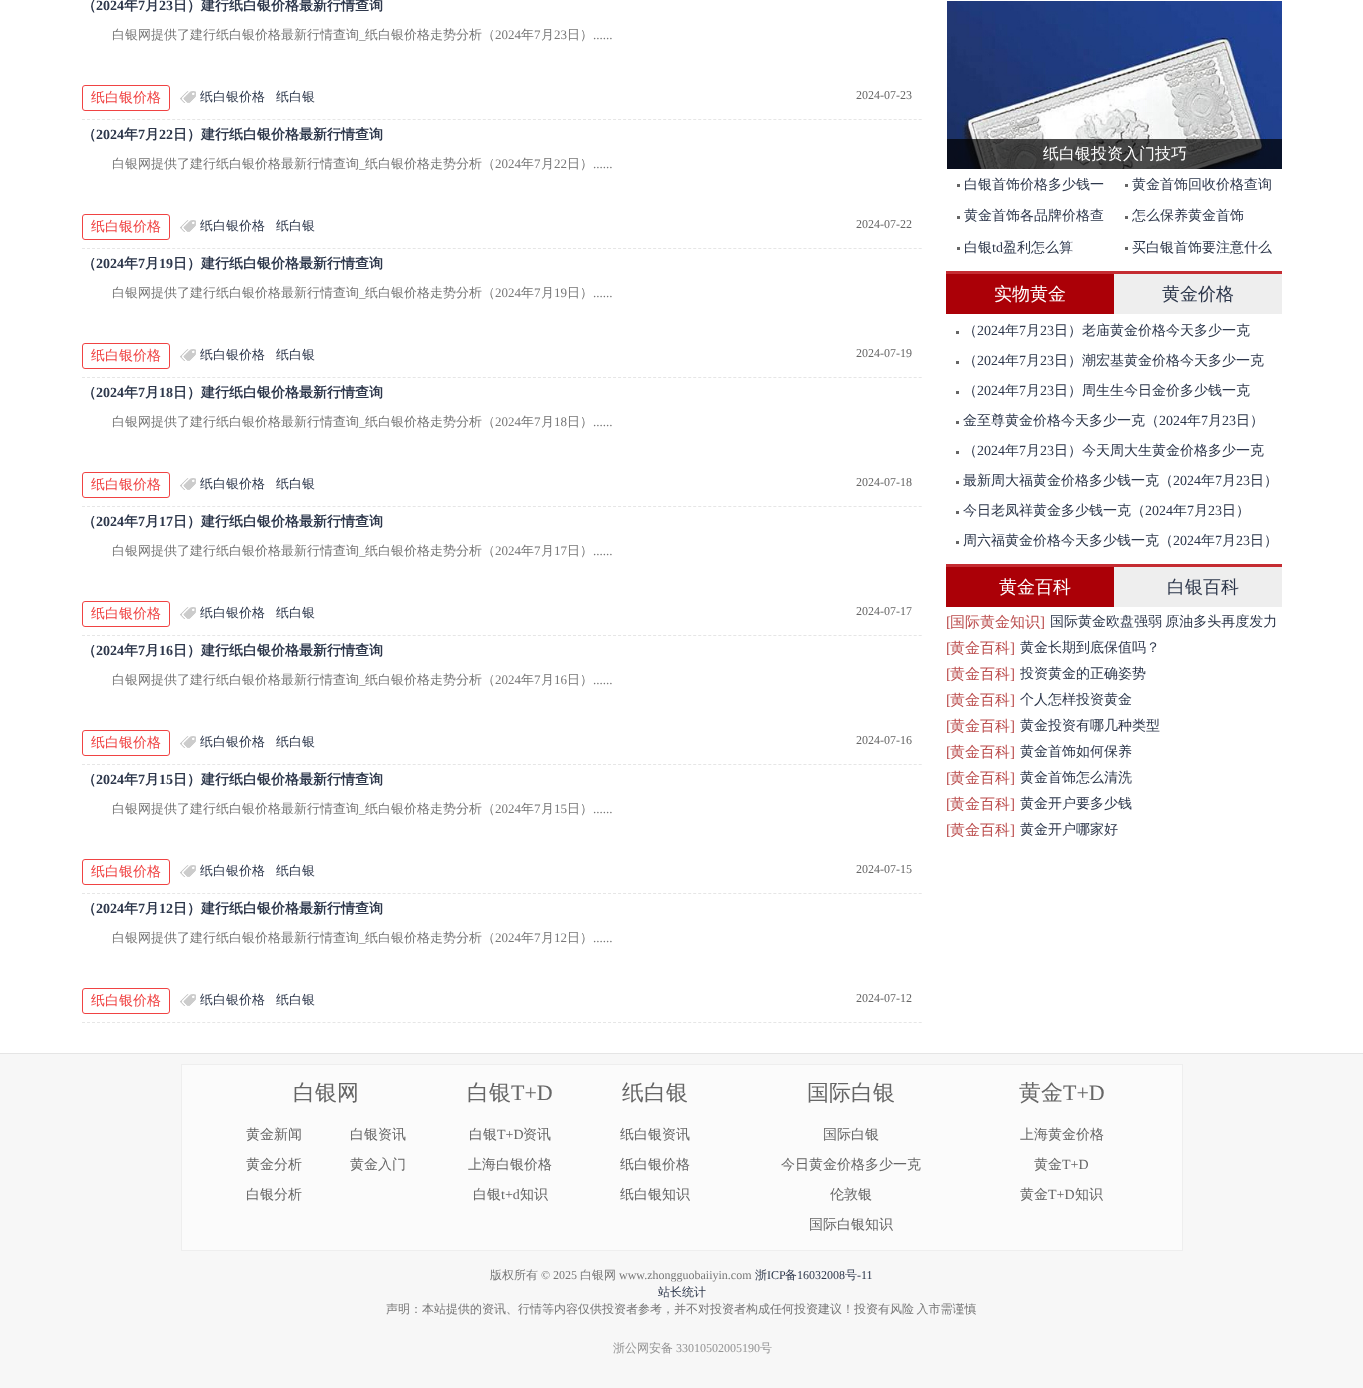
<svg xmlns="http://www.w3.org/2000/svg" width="1363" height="1388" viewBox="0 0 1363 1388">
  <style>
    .t1 { font: bold 14px WenQuanYi Zen Hei; fill: #2d374b; }
    .t2 { font: bold 14px Liberation Serif; fill: #2d374b; }
    .t3 { font: 500 13px WenQuanYi Zen Hei; fill: #777; }
    .t4 { font: 13px Liberation Serif; fill: #777; }
    .t5 { font: 500 14px WenQuanYi Zen Hei; fill: #f04343; }
    .t6 { font: 500 13px WenQuanYi Zen Hei; fill: #2d374b; }
    .t7 { font: 12px Liberation Serif; fill: #666; }
    .t8 { font: 500 16px WenQuanYi Zen Hei; fill: #fff; }
    .t9 { font: 500 14px WenQuanYi Zen Hei; fill: #2d374b; }
    .t10 { font: 14px Liberation Serif; fill: #2d374b; }
    .t11 { font: 500 18px WenQuanYi Zen Hei; fill: #fff; }
    .t12 { font: 500 18px WenQuanYi Zen Hei; fill: #2d374b; }
    .t13 { font: 15px Liberation Serif; fill: #bb4d4d; }
    .t14 { font: 500 15px WenQuanYi Zen Hei; fill: #bb4d4d; }
    .t15 { font: 500 22px WenQuanYi Zen Hei; fill: #666; }
    .t16 { font: 22px Liberation Serif; fill: #666; }
    .t17 { font: 500 14px WenQuanYi Zen Hei; fill: #666; }
    .t18 { font: 14px Liberation Serif; fill: #666; }
    .t19 { font: 500 12px WenQuanYi Zen Hei; fill: #777; }
    .t20 { font: 12px Liberation Serif; fill: #777; }
    .t21 { font: 500 12px WenQuanYi Zen Hei; fill: #2d374b; }
    .t22 { font: 12px Liberation Serif; fill: #2d374b; }
    .t23 { font: 500 12px WenQuanYi Zen Hei; fill: #939393; }
    .t24 { font: 12px Liberation Serif; fill: #939393; }
  </style>
  <defs>
    <clipPath id="clip1"><rect x="1020" y="661" width="262" height="26"/></clipPath>
  </defs>
  <rect width="100%" height="100%" fill="#fff"/>
  <path d="M82 119.5H922" fill="none" stroke="#e6e6e6" stroke-dasharray="3 2.01"/>
  <text x="82" y="10" class="t1">（</text>
  <text x="96" y="10" class="t2">2024</text>
  <text x="124" y="10" class="t1">年</text>
  <text x="138" y="10" class="t2">7</text>
  <text x="145" y="10" class="t1">月</text>
  <text x="159" y="10" class="t2">23</text>
  <text x="173" y="10" class="t1">日）建行纸白银价格最新行情查询</text>
  <text x="112" y="39" class="t3">白银网提供了建行纸白银价格最新行情查询</text>
  <text x="359" y="39" class="t4">_</text>
  <text x="365" y="39" class="t3">纸白银价格走势分析（</text>
  <text x="495" y="39" class="t4">2024</text>
  <text x="521" y="39" class="t3">年</text>
  <text x="534" y="39" class="t4">7</text>
  <text x="541" y="39" class="t3">月</text>
  <text x="554" y="39" class="t4">23</text>
  <text x="567" y="39" class="t3">日）</text>
  <text x="593" y="39" class="t4">......</text>
  <rect x="82.5" y="85.5" width="87" height="25" rx="2.5" fill="none" stroke="#f04343"/>
  <text x="91" y="102" class="t5">纸白银价格</text>
  <image x="180" y="91" width="16" height="12" href="images/1.png"/>
  <text x="200" y="101" class="t6">纸白银价格</text>
  <text x="276" y="101" class="t6">纸白银</text>
  <text x="856" y="99" class="t7">2024-07-23</text>
  <path d="M82 248.5H922" fill="none" stroke="#e6e6e6" stroke-dasharray="3 2.01"/>
  <text x="82" y="139" class="t1">（</text>
  <text x="96" y="139" class="t2">2024</text>
  <text x="124" y="139" class="t1">年</text>
  <text x="138" y="139" class="t2">7</text>
  <text x="145" y="139" class="t1">月</text>
  <text x="159" y="139" class="t2">22</text>
  <text x="173" y="139" class="t1">日）建行纸白银价格最新行情查询</text>
  <text x="112" y="168" class="t3">白银网提供了建行纸白银价格最新行情查询</text>
  <text x="359" y="168" class="t4">_</text>
  <text x="365" y="168" class="t3">纸白银价格走势分析（</text>
  <text x="495" y="168" class="t4">2024</text>
  <text x="521" y="168" class="t3">年</text>
  <text x="534" y="168" class="t4">7</text>
  <text x="541" y="168" class="t3">月</text>
  <text x="554" y="168" class="t4">22</text>
  <text x="567" y="168" class="t3">日）</text>
  <text x="593" y="168" class="t4">......</text>
  <rect x="82.5" y="214.5" width="87" height="25" rx="2.5" fill="none" stroke="#f04343"/>
  <text x="91" y="231" class="t5">纸白银价格</text>
  <image x="180" y="220" width="16" height="12" href="images/1.png"/>
  <text x="200" y="230" class="t6">纸白银价格</text>
  <text x="276" y="230" class="t6">纸白银</text>
  <text x="856" y="228" class="t7">2024-07-22</text>
  <path d="M82 377.5H922" fill="none" stroke="#e6e6e6" stroke-dasharray="3 2.01"/>
  <text x="82" y="268" class="t1">（</text>
  <text x="96" y="268" class="t2">2024</text>
  <text x="124" y="268" class="t1">年</text>
  <text x="138" y="268" class="t2">7</text>
  <text x="145" y="268" class="t1">月</text>
  <text x="159" y="268" class="t2">19</text>
  <text x="173" y="268" class="t1">日）建行纸白银价格最新行情查询</text>
  <text x="112" y="297" class="t3">白银网提供了建行纸白银价格最新行情查询</text>
  <text x="359" y="297" class="t4">_</text>
  <text x="365" y="297" class="t3">纸白银价格走势分析（</text>
  <text x="495" y="297" class="t4">2024</text>
  <text x="521" y="297" class="t3">年</text>
  <text x="534" y="297" class="t4">7</text>
  <text x="541" y="297" class="t3">月</text>
  <text x="554" y="297" class="t4">19</text>
  <text x="567" y="297" class="t3">日）</text>
  <text x="593" y="297" class="t4">......</text>
  <rect x="82.5" y="343.5" width="87" height="25" rx="2.5" fill="none" stroke="#f04343"/>
  <text x="91" y="360" class="t5">纸白银价格</text>
  <image x="180" y="349" width="16" height="12" href="images/1.png"/>
  <text x="200" y="359" class="t6">纸白银价格</text>
  <text x="276" y="359" class="t6">纸白银</text>
  <text x="856" y="357" class="t7">2024-07-19</text>
  <path d="M82 506.5H922" fill="none" stroke="#e6e6e6" stroke-dasharray="3 2.01"/>
  <text x="82" y="397" class="t1">（</text>
  <text x="96" y="397" class="t2">2024</text>
  <text x="124" y="397" class="t1">年</text>
  <text x="138" y="397" class="t2">7</text>
  <text x="145" y="397" class="t1">月</text>
  <text x="159" y="397" class="t2">18</text>
  <text x="173" y="397" class="t1">日）建行纸白银价格最新行情查询</text>
  <text x="112" y="426" class="t3">白银网提供了建行纸白银价格最新行情查询</text>
  <text x="359" y="426" class="t4">_</text>
  <text x="365" y="426" class="t3">纸白银价格走势分析（</text>
  <text x="495" y="426" class="t4">2024</text>
  <text x="521" y="426" class="t3">年</text>
  <text x="534" y="426" class="t4">7</text>
  <text x="541" y="426" class="t3">月</text>
  <text x="554" y="426" class="t4">18</text>
  <text x="567" y="426" class="t3">日）</text>
  <text x="593" y="426" class="t4">......</text>
  <rect x="82.5" y="472.5" width="87" height="25" rx="2.5" fill="none" stroke="#f04343"/>
  <text x="91" y="489" class="t5">纸白银价格</text>
  <image x="180" y="478" width="16" height="12" href="images/1.png"/>
  <text x="200" y="488" class="t6">纸白银价格</text>
  <text x="276" y="488" class="t6">纸白银</text>
  <text x="856" y="486" class="t7">2024-07-18</text>
  <path d="M82 635.5H922" fill="none" stroke="#e6e6e6" stroke-dasharray="3 2.01"/>
  <text x="82" y="526" class="t1">（</text>
  <text x="96" y="526" class="t2">2024</text>
  <text x="124" y="526" class="t1">年</text>
  <text x="138" y="526" class="t2">7</text>
  <text x="145" y="526" class="t1">月</text>
  <text x="159" y="526" class="t2">17</text>
  <text x="173" y="526" class="t1">日）建行纸白银价格最新行情查询</text>
  <text x="112" y="555" class="t3">白银网提供了建行纸白银价格最新行情查询</text>
  <text x="359" y="555" class="t4">_</text>
  <text x="365" y="555" class="t3">纸白银价格走势分析（</text>
  <text x="495" y="555" class="t4">2024</text>
  <text x="521" y="555" class="t3">年</text>
  <text x="534" y="555" class="t4">7</text>
  <text x="541" y="555" class="t3">月</text>
  <text x="554" y="555" class="t4">17</text>
  <text x="567" y="555" class="t3">日）</text>
  <text x="593" y="555" class="t4">......</text>
  <rect x="82.5" y="601.5" width="87" height="25" rx="2.5" fill="none" stroke="#f04343"/>
  <text x="91" y="618" class="t5">纸白银价格</text>
  <image x="180" y="607" width="16" height="12" href="images/1.png"/>
  <text x="200" y="617" class="t6">纸白银价格</text>
  <text x="276" y="617" class="t6">纸白银</text>
  <text x="856" y="615" class="t7">2024-07-17</text>
  <path d="M82 764.5H922" fill="none" stroke="#e6e6e6" stroke-dasharray="3 2.01"/>
  <text x="82" y="655" class="t1">（</text>
  <text x="96" y="655" class="t2">2024</text>
  <text x="124" y="655" class="t1">年</text>
  <text x="138" y="655" class="t2">7</text>
  <text x="145" y="655" class="t1">月</text>
  <text x="159" y="655" class="t2">16</text>
  <text x="173" y="655" class="t1">日）建行纸白银价格最新行情查询</text>
  <text x="112" y="684" class="t3">白银网提供了建行纸白银价格最新行情查询</text>
  <text x="359" y="684" class="t4">_</text>
  <text x="365" y="684" class="t3">纸白银价格走势分析（</text>
  <text x="495" y="684" class="t4">2024</text>
  <text x="521" y="684" class="t3">年</text>
  <text x="534" y="684" class="t4">7</text>
  <text x="541" y="684" class="t3">月</text>
  <text x="554" y="684" class="t4">16</text>
  <text x="567" y="684" class="t3">日）</text>
  <text x="593" y="684" class="t4">......</text>
  <rect x="82.5" y="730.5" width="87" height="25" rx="2.5" fill="none" stroke="#f04343"/>
  <text x="91" y="747" class="t5">纸白银价格</text>
  <image x="180" y="736" width="16" height="12" href="images/1.png"/>
  <text x="200" y="746" class="t6">纸白银价格</text>
  <text x="276" y="746" class="t6">纸白银</text>
  <text x="856" y="744" class="t7">2024-07-16</text>
  <path d="M82 893.5H922" fill="none" stroke="#e6e6e6" stroke-dasharray="3 2.01"/>
  <text x="82" y="784" class="t1">（</text>
  <text x="96" y="784" class="t2">2024</text>
  <text x="124" y="784" class="t1">年</text>
  <text x="138" y="784" class="t2">7</text>
  <text x="145" y="784" class="t1">月</text>
  <text x="159" y="784" class="t2">15</text>
  <text x="173" y="784" class="t1">日）建行纸白银价格最新行情查询</text>
  <text x="112" y="813" class="t3">白银网提供了建行纸白银价格最新行情查询</text>
  <text x="359" y="813" class="t4">_</text>
  <text x="365" y="813" class="t3">纸白银价格走势分析（</text>
  <text x="495" y="813" class="t4">2024</text>
  <text x="521" y="813" class="t3">年</text>
  <text x="534" y="813" class="t4">7</text>
  <text x="541" y="813" class="t3">月</text>
  <text x="554" y="813" class="t4">15</text>
  <text x="567" y="813" class="t3">日）</text>
  <text x="593" y="813" class="t4">......</text>
  <rect x="82.5" y="859.5" width="87" height="25" rx="2.5" fill="none" stroke="#f04343"/>
  <text x="91" y="876" class="t5">纸白银价格</text>
  <image x="180" y="865" width="16" height="12" href="images/1.png"/>
  <text x="200" y="875" class="t6">纸白银价格</text>
  <text x="276" y="875" class="t6">纸白银</text>
  <text x="856" y="873" class="t7">2024-07-15</text>
  <path d="M82 1022.5H922" fill="none" stroke="#e6e6e6" stroke-dasharray="3 2.01"/>
  <text x="82" y="913" class="t1">（</text>
  <text x="96" y="913" class="t2">2024</text>
  <text x="124" y="913" class="t1">年</text>
  <text x="138" y="913" class="t2">7</text>
  <text x="145" y="913" class="t1">月</text>
  <text x="159" y="913" class="t2">12</text>
  <text x="173" y="913" class="t1">日）建行纸白银价格最新行情查询</text>
  <text x="112" y="942" class="t3">白银网提供了建行纸白银价格最新行情查询</text>
  <text x="359" y="942" class="t4">_</text>
  <text x="365" y="942" class="t3">纸白银价格走势分析（</text>
  <text x="495" y="942" class="t4">2024</text>
  <text x="521" y="942" class="t3">年</text>
  <text x="534" y="942" class="t4">7</text>
  <text x="541" y="942" class="t3">月</text>
  <text x="554" y="942" class="t4">12</text>
  <text x="567" y="942" class="t3">日）</text>
  <text x="593" y="942" class="t4">......</text>
  <rect x="82.5" y="988.5" width="87" height="25" rx="2.5" fill="none" stroke="#f04343"/>
  <text x="91" y="1005" class="t5">纸白银价格</text>
  <image x="180" y="994" width="16" height="12" href="images/1.png"/>
  <text x="200" y="1004" class="t6">纸白银价格</text>
  <text x="276" y="1004" class="t6">纸白银</text>
  <text x="856" y="1002" class="t7">2024-07-12</text>
  <image x="947" y="1" width="335" height="168" href="images/2.png"/>
  <rect x="947" y="139" width="335" height="30" fill="#000000b3"/>
  <text x="1043" y="159" class="t8">纸白银投资入门技巧</text>
  <rect x="957" y="184" width="3" height="3" fill="#666"/>
  <text x="964" y="189" class="t9">白银首饰价格多少钱一</text>
  <rect x="1125" y="184" width="3" height="3" fill="#666"/>
  <text x="1132" y="189" class="t9">黄金首饰回收价格查询</text>
  <rect x="957" y="216" width="3" height="3" fill="#666"/>
  <text x="964" y="220" class="t9">黄金首饰各品牌价格查</text>
  <rect x="1125" y="216" width="3" height="3" fill="#666"/>
  <text x="1132" y="220" class="t9">怎么保养黄金首饰</text>
  <rect x="957" y="247" width="3" height="3" fill="#666"/>
  <text x="964" y="252" class="t9">白银</text>
  <text x="992" y="252" class="t10">td</text>
  <text x="1003" y="252" class="t9">盈利怎么算</text>
  <rect x="1125" y="247" width="3" height="3" fill="#666"/>
  <text x="1132" y="252" class="t9">买白银首饰要注意什么</text>
  <rect x="946" y="274" width="168" height="40" fill="#ab0007"/>
  <rect x="946" y="271" width="336" height="3" fill="#c52c32"/>
  <text x="994" y="300" class="t11">实物黄金</text>
  <rect x="1114" y="274" width="168" height="40" fill="#eee"/>
  <text x="1162" y="300" class="t12">黄金价格</text>
  <rect x="956" y="331" width="3" height="3" fill="#666"/>
  <text x="963" y="335" class="t9">（</text>
  <text x="977" y="335" class="t10">2024</text>
  <text x="1005" y="335" class="t9">年</text>
  <text x="1019" y="335" class="t10">7</text>
  <text x="1026" y="335" class="t9">月</text>
  <text x="1040" y="335" class="t10">23</text>
  <text x="1054" y="335" class="t9">日）老庙黄金价格今天多少一克</text>
  <rect x="956" y="361" width="3" height="3" fill="#666"/>
  <text x="963" y="365" class="t9">（</text>
  <text x="977" y="365" class="t10">2024</text>
  <text x="1005" y="365" class="t9">年</text>
  <text x="1019" y="365" class="t10">7</text>
  <text x="1026" y="365" class="t9">月</text>
  <text x="1040" y="365" class="t10">23</text>
  <text x="1054" y="365" class="t9">日）潮宏基黄金价格今天多少一克</text>
  <rect x="956" y="391" width="3" height="3" fill="#666"/>
  <text x="963" y="395" class="t9">（</text>
  <text x="977" y="395" class="t10">2024</text>
  <text x="1005" y="395" class="t9">年</text>
  <text x="1019" y="395" class="t10">7</text>
  <text x="1026" y="395" class="t9">月</text>
  <text x="1040" y="395" class="t10">23</text>
  <text x="1054" y="395" class="t9">日）周生生今日金价多少钱一克</text>
  <rect x="956" y="421" width="3" height="3" fill="#666"/>
  <text x="963" y="425" class="t9">金至尊黄金价格今天多少一克（</text>
  <text x="1159" y="425" class="t10">2024</text>
  <text x="1187" y="425" class="t9">年</text>
  <text x="1201" y="425" class="t10">7</text>
  <text x="1208" y="425" class="t9">月</text>
  <text x="1222" y="425" class="t10">23</text>
  <text x="1236" y="425" class="t9">日）</text>
  <rect x="956" y="451" width="3" height="3" fill="#666"/>
  <text x="963" y="455" class="t9">（</text>
  <text x="977" y="455" class="t10">2024</text>
  <text x="1005" y="455" class="t9">年</text>
  <text x="1019" y="455" class="t10">7</text>
  <text x="1026" y="455" class="t9">月</text>
  <text x="1040" y="455" class="t10">23</text>
  <text x="1054" y="455" class="t9">日）今天周大生黄金价格多少一克</text>
  <rect x="956" y="481" width="3" height="3" fill="#666"/>
  <text x="963" y="485" class="t9">最新周大福黄金价格多少钱一克（</text>
  <text x="1173" y="485" class="t10">2024</text>
  <text x="1201" y="485" class="t9">年</text>
  <text x="1215" y="485" class="t10">7</text>
  <text x="1222" y="485" class="t9">月</text>
  <text x="1236" y="485" class="t10">23</text>
  <text x="1250" y="485" class="t9">日）</text>
  <rect x="956" y="511" width="3" height="3" fill="#666"/>
  <text x="963" y="515" class="t9">今日老凤祥黄金多少钱一克（</text>
  <text x="1145" y="515" class="t10">2024</text>
  <text x="1173" y="515" class="t9">年</text>
  <text x="1187" y="515" class="t10">7</text>
  <text x="1194" y="515" class="t9">月</text>
  <text x="1208" y="515" class="t10">23</text>
  <text x="1222" y="515" class="t9">日）</text>
  <rect x="956" y="541" width="3" height="3" fill="#666"/>
  <text x="963" y="545" class="t9">周六福黄金价格今天多少钱一克（</text>
  <text x="1173" y="545" class="t10">2024</text>
  <text x="1201" y="545" class="t9">年</text>
  <text x="1215" y="545" class="t10">7</text>
  <text x="1222" y="545" class="t9">月</text>
  <text x="1236" y="545" class="t10">23</text>
  <text x="1250" y="545" class="t9">日）</text>
  <rect x="946" y="567" width="168" height="40" fill="#ab0007"/>
  <rect x="946" y="564" width="336" height="3" fill="#c52c32"/>
  <text x="999" y="593" class="t11">黄金百科</text>
  <rect x="1114" y="567" width="168" height="40" fill="#eee"/>
  <text x="1167" y="593" class="t12">白银百科</text>
  <text x="946" y="627" class="t13">[</text>
  <text x="950" y="627" class="t14">国际黄金知识</text>
  <text x="1040" y="627" class="t13">]</text>
  <text x="1050" y="626" word-spacing="-1" class="t9">国际黄金欧盘强弱 原油多头再度发力</text>
  <text x="946" y="653" class="t13">[</text>
  <text x="950" y="653" class="t14">黄金百科</text>
  <text x="1010" y="653" class="t13">]</text>
  <text x="1020" y="652" class="t9">黄金长期到底保值吗？</text>
  <text x="946" y="679" class="t13">[</text>
  <text x="950" y="679" class="t14">黄金百科</text>
  <text x="1010" y="679" class="t13">]</text>
  <g clip-path="url(#clip1)">
    <text x="1020" y="678" class="t9">投资黄金的正确姿势</text>
  </g>
  <text x="946" y="705" class="t13">[</text>
  <text x="950" y="705" class="t14">黄金百科</text>
  <text x="1010" y="705" class="t13">]</text>
  <text x="1020" y="704" class="t9">个人怎样投资黄金</text>
  <text x="946" y="731" class="t13">[</text>
  <text x="950" y="731" class="t14">黄金百科</text>
  <text x="1010" y="731" class="t13">]</text>
  <text x="1020" y="730" class="t9">黄金投资有哪几种类型</text>
  <text x="946" y="757" class="t13">[</text>
  <text x="950" y="757" class="t14">黄金百科</text>
  <text x="1010" y="757" class="t13">]</text>
  <text x="1020" y="756" class="t9">黄金首饰如何保养</text>
  <text x="946" y="783" class="t13">[</text>
  <text x="950" y="783" class="t14">黄金百科</text>
  <text x="1010" y="783" class="t13">]</text>
  <text x="1020" y="782" class="t9">黄金首饰怎么清洗</text>
  <text x="946" y="809" class="t13">[</text>
  <text x="950" y="809" class="t14">黄金百科</text>
  <text x="1010" y="809" class="t13">]</text>
  <text x="1020" y="808" class="t9">黄金开户要多少钱</text>
  <text x="946" y="835" class="t13">[</text>
  <text x="950" y="835" class="t14">黄金百科</text>
  <text x="1010" y="835" class="t13">]</text>
  <text x="1020" y="834" class="t9">黄金开户哪家好</text>
  <rect x="0" y="1054" width="1363" height="334" fill="#f7f7f7"/>
  <rect x="0" y="1053" width="1363" height="1" fill="#e5e5e5"/>
  <rect x="181.5" y="1064.5" width="1001" height="186" fill="#fbfbfb" stroke="#eee"/>
  <text x="293" y="1100" class="t15">白银网</text>
  <text x="467" y="1100" class="t15">白银</text>
  <text x="511" y="1100" class="t16">T+D</text>
  <text x="622" y="1100" class="t15">纸白银</text>
  <text x="807" y="1100" class="t15">国际白银</text>
  <text x="1019" y="1100" class="t15">黄金</text>
  <text x="1063" y="1100" class="t16">T+D</text>
  <text x="246" y="1139" class="t17">黄金新闻</text>
  <text x="246" y="1169" class="t17">黄金分析</text>
  <text x="246" y="1199" class="t17">白银分析</text>
  <text x="350" y="1139" class="t17">白银资讯</text>
  <text x="350" y="1169" class="t17">黄金入门</text>
  <text x="469" y="1139" class="t17">白银</text>
  <text x="497" y="1139" class="t18">T+D</text>
  <text x="523" y="1139" class="t17">资讯</text>
  <text x="468" y="1169" class="t17">上海白银价格</text>
  <text x="473" y="1199" class="t17">白银</text>
  <text x="501" y="1199" class="t18">t+d</text>
  <text x="520" y="1199" class="t17">知识</text>
  <text x="620" y="1139" class="t17">纸白银资讯</text>
  <text x="620" y="1169" class="t17">纸白银价格</text>
  <text x="620" y="1199" class="t17">纸白银知识</text>
  <text x="823" y="1139" class="t17">国际白银</text>
  <text x="781" y="1169" class="t17">今日黄金价格多少一克</text>
  <text x="830" y="1199" class="t17">伦敦银</text>
  <text x="809" y="1229" class="t17">国际白银知识</text>
  <text x="1020" y="1139" class="t17">上海黄金价格</text>
  <text x="1034" y="1169" class="t17">黄金</text>
  <text x="1062" y="1169" class="t18">T+D</text>
  <text x="1020" y="1199" class="t17">黄金</text>
  <text x="1048" y="1199" class="t18">T+D</text>
  <text x="1075" y="1199" class="t17">知识</text>
  <text x="490" y="1279" class="t19">版权所有</text>
  <text x="541" y="1279" class="t20">© 2025</text>
  <text x="580" y="1279" class="t19">白银网</text>
  <text x="619" y="1279" class="t20">www.zhongguobaiiyin.com</text>
  <text x="755" y="1279" class="t21">浙</text>
  <text x="767" y="1279" class="t22">ICP</text>
  <text x="785" y="1279" class="t21">备</text>
  <text x="797" y="1279" class="t22">16032008</text>
  <text x="845" y="1279" class="t21">号</text>
  <text x="857" y="1279" class="t22">-11</text>
  <text x="658" y="1296" class="t21">站长统计</text>
  <text x="386" y="1313" word-spacing="-1" class="t19">声明：本站提供的资讯、行情等内容仅供投资者参考，并不对投资者构成任何投资建议！投资有风险 入市需谨慎</text>
  <text x="613" y="1352" class="t23">浙公网安备</text>
  <text x="676" y="1352" class="t24">33010502005190</text>
  <text x="760" y="1352" class="t23">号</text>
</svg>
